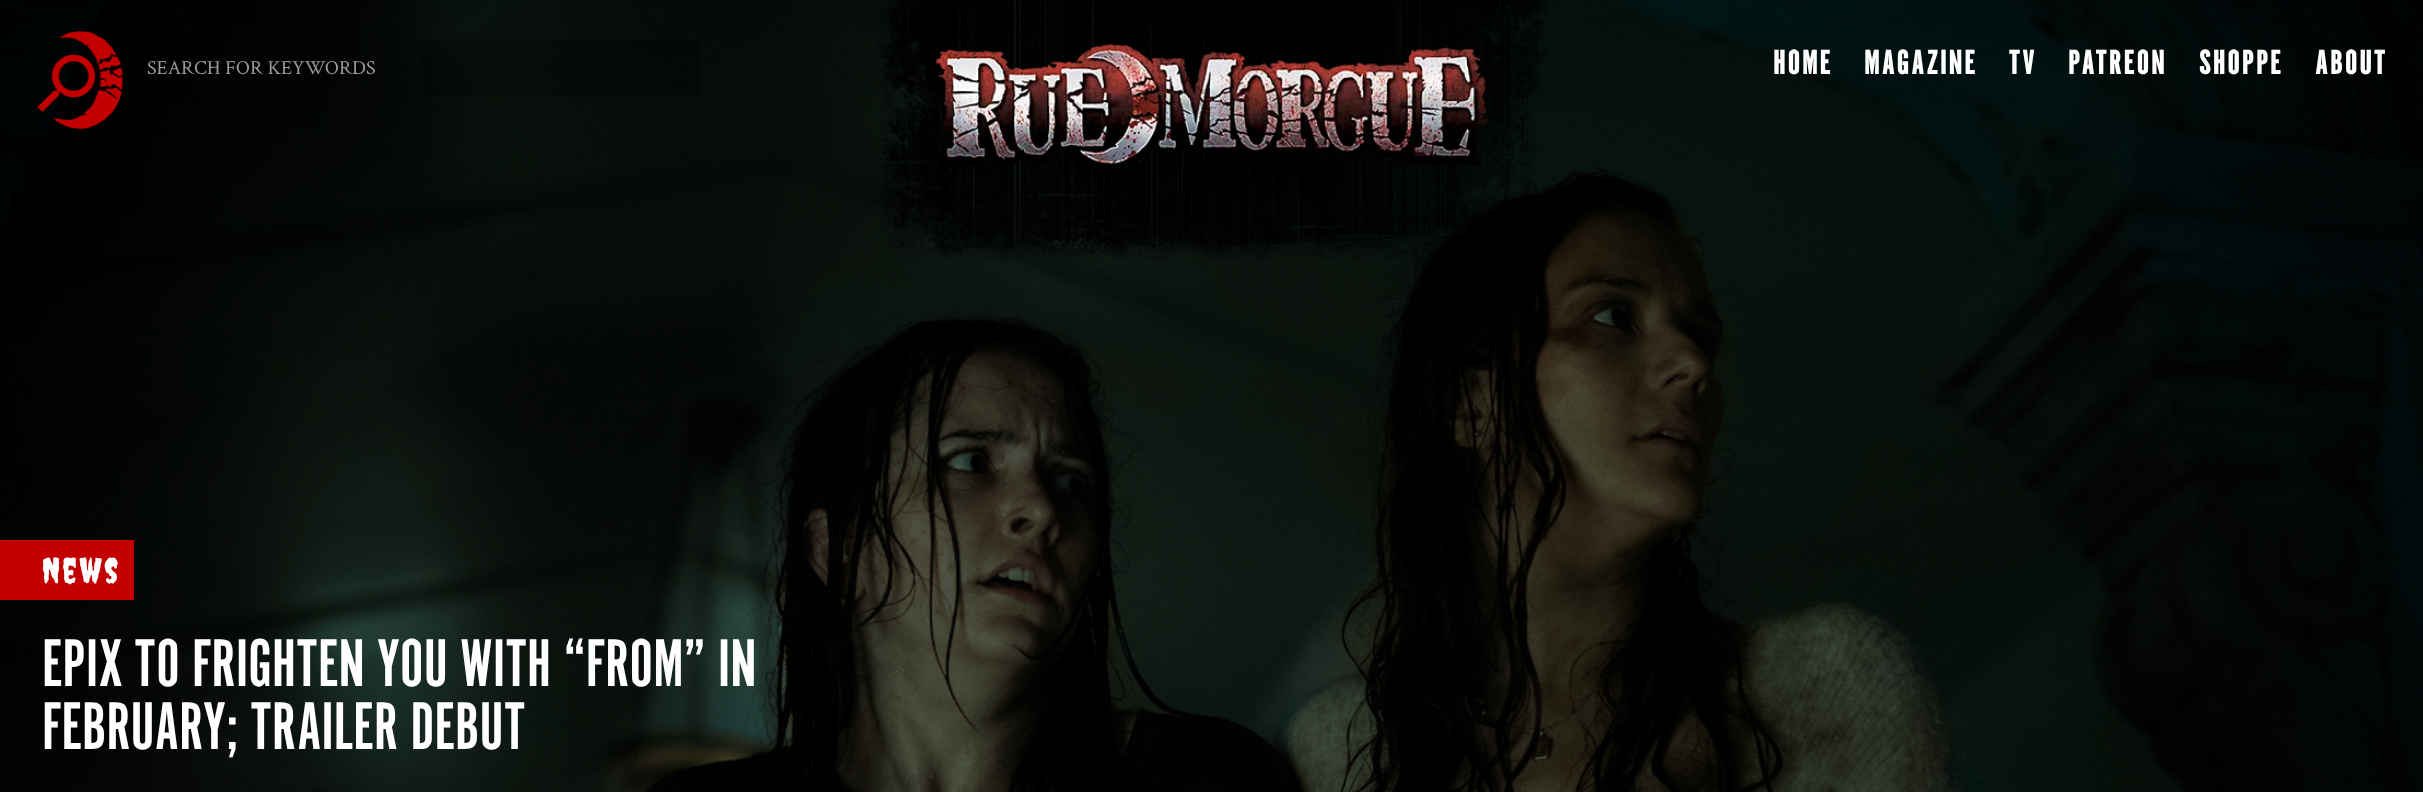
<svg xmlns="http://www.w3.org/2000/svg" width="2423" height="792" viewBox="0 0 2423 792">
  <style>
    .t1 { font: 20px Crimson Text; fill: #9b9999; }
    .t2 { font: bold 35px 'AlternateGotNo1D'; letter-spacing: 2.5px; fill: #fff; }
    .t3 { font: 35px Creepster; letter-spacing: 2.5px; fill: #fff; }
    .t4 { font: 70px 'AlternateGotNo1D'; fill: #fff; }
  </style>
  <rect width="100%" height="100%" fill="#fff"/>
  <image x="0" y="0" width="2423" height="792" href="images/4.png"/>
  <image x="37" y="31" width="86" height="98" href="images/1.png"/>
  <rect x="421" y="40" width="278" height="56" fill="#00000033"/>
  <text x="147" y="74" class="t1">SEARCH FOR KEYWORDS</text>
  <text x="1773" y="74" class="t2">HOME</text>
  <text x="1864" y="74" class="t2">MAGAZINE</text>
  <text x="2009" y="74" class="t2">TV</text>
  <text x="2068" y="74" class="t2">PATREON</text>
  <text x="2199" y="74" class="t2">SHOPPE</text>
  <text x="2315" y="74" class="t2">ABOUT</text>
  <image x="877" y="0" width="671" height="260" href="images/2.png"/>
  <image x="936" y="43" width="552" height="129" href="images/3.png"/>
  <rect x="0" y="540" width="134" height="60" fill="#c20000"/>
  <text x="42" y="583" class="t3">News</text>
  <text x="42" y="686" class="t4">EPIX TO FRIGHTEN YOU WITH “FROM” IN</text>
  <text x="42" y="749" class="t4">FEBRUARY; TRAILER DEBUT</text>
</svg>
